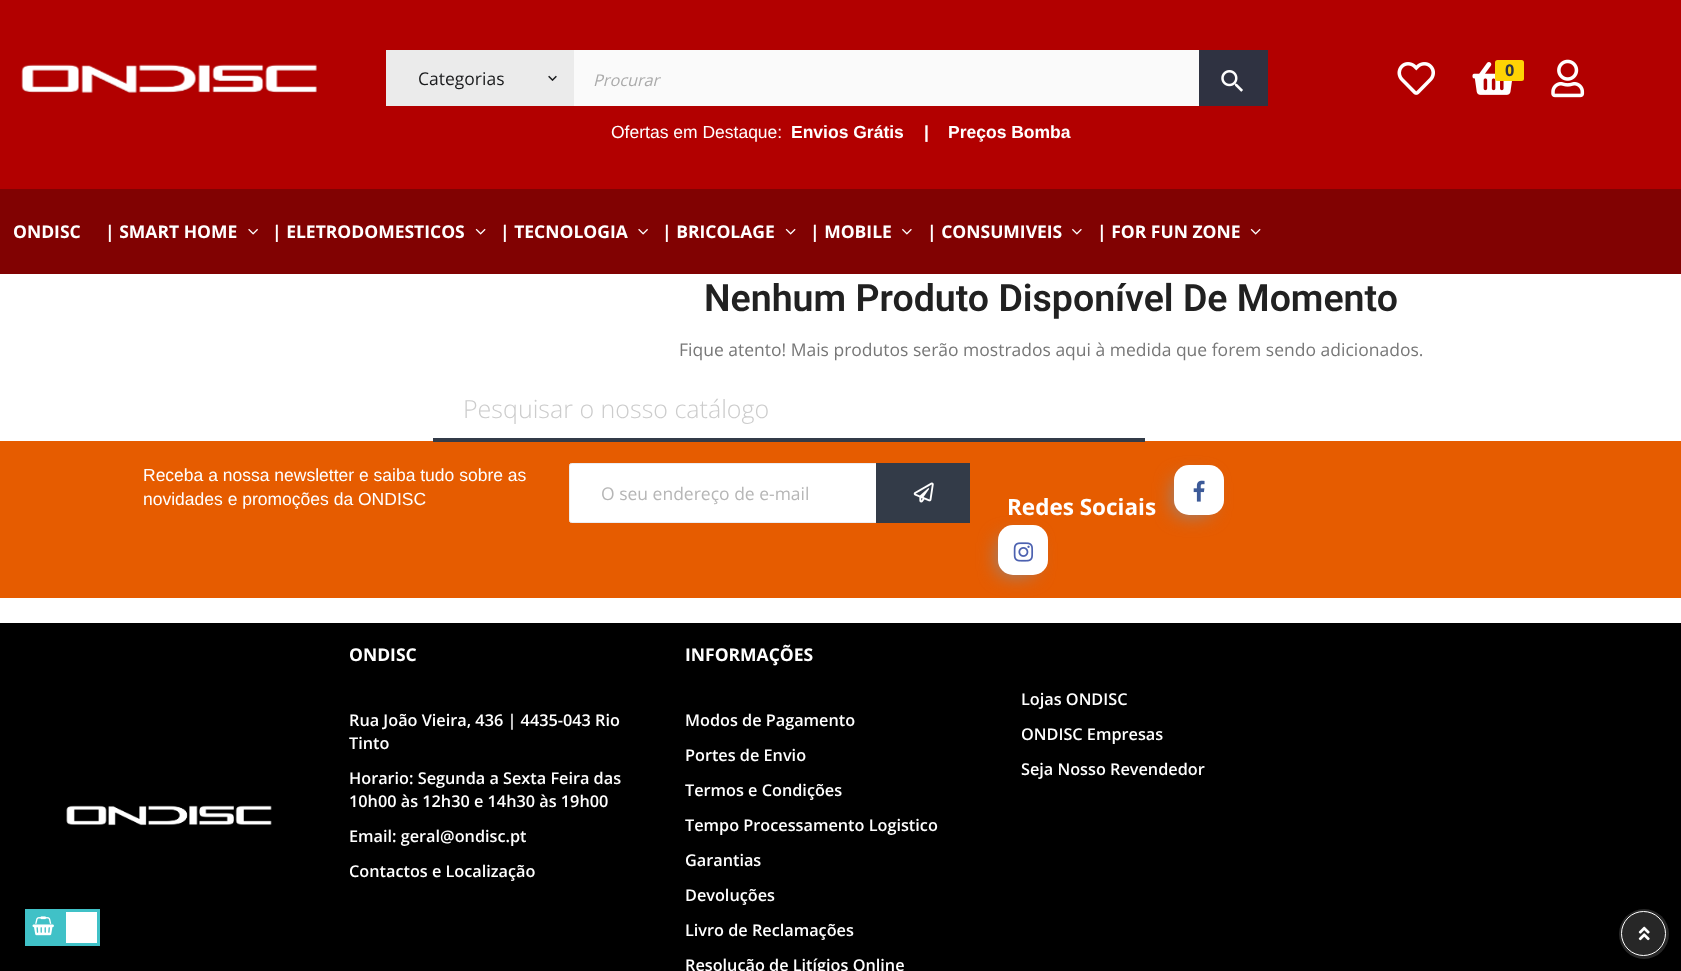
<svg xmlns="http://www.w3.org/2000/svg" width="1681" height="971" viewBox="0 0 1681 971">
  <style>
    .t1 { font: bold 16.25px Open Sans; fill: #2f3241; }
    .t2 { font: 17.5px Open Sans; fill: #191a1c; }
    .t3 { font: italic 16.25px Open Sans; fill: #aaa; }
    .t4 { font: 17.5px Liberation Sans; fill: #fff; }
    .t5 { font: bold 17.5px Liberation Sans; fill: #fff; }
    .t6 { font: bold 17.5px Open Sans; fill: #fff; }
    .t7 { font: 600 37.5px Roboto; fill: #212121; }
    .t8 { font: 17.5px Open Sans; fill: #777; }
    .t9 { font: 300 25px Open Sans; fill: #ccc; }
    .t10 { font: 17.5px Open Sans; fill: #b6b6b6; }
    .t11 { font: bold 22.5px Open Sans; fill: #fff; }
    .t12 { font: 600 16.25px Open Sans; fill: #fff; }
  </style>
  <rect width="100%" height="100%" fill="#fff"/>
  <rect x="0" y="0" width="1681" height="189" fill="#b20000"/>
  <image x="21" y="64" width="296" height="29" href="images/1.png"/>
  <image x="1397" y="62" width="38" height="33" href="images/2.png"/>
  <image x="1472" y="62" width="40" height="33" href="images/3.png"/>
  <rect x="1495" y="60" width="29" height="21" rx="2.5" fill="#ffd304"/>
  <text x="1505" y="76" class="t1">0</text>
  <image x="1551" y="59" width="34" height="39" href="images/4.png"/>
  <rect x="386" y="50" width="188" height="56" fill="#ebebeb"/>
  <text x="418" y="85" class="t2">Categorias</text>
  <image x="548" y="75" width="9" height="6" href="images/5.png"/>
  <rect x="574" y="50" width="625" height="56" fill="#fafafa"/>
  <text x="593" y="86" class="t3">Procurar</text>
  <rect x="1199" y="50" width="69" height="56" fill="#2f3241"/>
  <image x="1221" y="70" width="22" height="22" href="images/6.png"/>
  <text x="611" y="138" class="t4">Ofertas em Destaque:</text>
  <text x="791" y="138" class="t5">Envios Grátis</text>
  <text x="924" y="138" class="t5">|</text>
  <text x="948" y="138" class="t5">Preços Bomba</text>
  <rect x="0" y="189" width="1681" height="85" fill="#810202"/>
  <text x="13" y="238" class="t6">ONDISC</text>
  <text x="105" y="238" class="t6">| SMART HOME</text>
  <image x="248" y="228" width="10" height="7" href="images/7.png"/>
  <text x="272" y="238" class="t6">| ELETRODOMESTICOS</text>
  <image x="475" y="228" width="11" height="7" href="images/8.png"/>
  <text x="500" y="238" class="t6">| TECNOLOGIA</text>
  <image x="638" y="228" width="10" height="7" href="images/7.png"/>
  <text x="662" y="238" class="t6">| BRICOLAGE</text>
  <image x="785" y="228" width="11" height="7" href="images/8.png"/>
  <text x="810" y="238" class="t6">| MOBILE</text>
  <image x="902" y="228" width="10" height="7" href="images/9.png"/>
  <text x="927" y="238" class="t6">| CONSUMIVEIS</text>
  <image x="1072" y="228" width="10" height="7" href="images/9.png"/>
  <text x="1097" y="238" class="t6">| FOR FUN ZONE</text>
  <image x="1250" y="228" width="11" height="7" href="images/8.png"/>
  <text x="704" y="311" class="t7">Nenhum Produto Disponível De Momento</text>
  <text x="679" y="356" class="t8">Fique atento! Mais produtos serão mostrados aqui à medida que forem sendo adicionados.</text>
  <rect x="0" y="441" width="1681" height="157" fill="#e65c00"/>
  <rect x="433" y="438" width="712" height="4" fill="#333b48"/>
  <text x="463" y="418" class="t9">Pesquisar o nosso catálogo</text>
  <text x="143" y="481" class="t4">Receba a nossa newsletter e saiba tudo sobre as</text>
  <text x="143" y="505" class="t4">novidades e promoções da ONDISC</text>
  <rect x="569.5" y="463.5" width="400" height="59" rx="2" fill="#fff" stroke="#ecedf1"/>
  <text x="601" y="500" class="t10">O seu endereço de e-mail</text>
  <rect x="876" y="463" width="94" height="60" fill="#333b48"/>
  <image x="913" y="482" width="21" height="21" href="images/10.png"/>
  <text x="1007" y="515" class="t11">Redes Sociais</text>
  <rect x="1174" y="478" width="37" height="37" rx="9" fill="#908888" filter="blur(9.5px)"/>
  <rect x="1174" y="465" width="50" height="50" rx="15" fill="#fff"/>
  <image x="1193" y="480" width="12" height="22" href="images/11.png"/>
  <rect x="998" y="538" width="37" height="37" rx="9" fill="#908888" filter="blur(9.5px)"/>
  <rect x="998" y="525" width="50" height="50" rx="15" fill="#fff"/>
  <image x="1013" y="542" width="21" height="20" href="images/12.png"/>
  <rect x="0" y="623" width="1681" height="348" fill="#000"/>
  <text x="349" y="661" class="t6">ONDISC</text>
  <text x="349" y="726" class="t12">Rua João Vieira, 436 | 4435-043 Rio</text>
  <text x="349" y="749" class="t12">Tinto</text>
  <text x="349" y="784" class="t12">Horario: Segunda a Sexta Feira das</text>
  <text x="349" y="807" class="t12">10h00 às 12h30 e 14h30 às 19h00</text>
  <text x="349" y="842" class="t12">Email: geral@ondisc.pt</text>
  <text x="349" y="877" class="t12">Contactos e Localização</text>
  <text x="685" y="661" class="t6">INFORMAÇÕES</text>
  <text x="685" y="726" class="t12">Modos de Pagamento</text>
  <text x="685" y="761" class="t12">Portes de Envio</text>
  <text x="685" y="796" class="t12">Termos e Condições</text>
  <text x="685" y="831" class="t12">Tempo Processamento Logistico</text>
  <text x="685" y="866" class="t12">Garantias</text>
  <text x="685" y="901" class="t12">Devoluções</text>
  <text x="685" y="936" class="t12">Livro de Reclamações</text>
  <text x="685" y="971" class="t12">Resolução de Litígios Online</text>
  <text x="1021" y="705" class="t12">Lojas ONDISC</text>
  <text x="1021" y="740" class="t12">ONDISC Empresas</text>
  <text x="1021" y="775" class="t12">Seja Nosso Revendedor</text>
  <image x="66" y="805" width="206" height="21" href="images/13.png"/>
  <circle cx="1644" cy="934" r="25" fill="#272727"/>
  <circle cx="1643.5" cy="933.5" r="22" fill="none" stroke="#fff"/>
  <image x="1638" y="926" width="12" height="15" href="images/14.png"/>
  <rect x="25" y="909" width="38" height="37" fill="#40c1c7"/>
  <image x="32" y="916" width="22" height="20" href="images/15.png"/>
  <rect x="64.5" y="910.5" width="34" height="34" fill="#fff" stroke="#40c1c7" stroke-width="3"/>
</svg>
